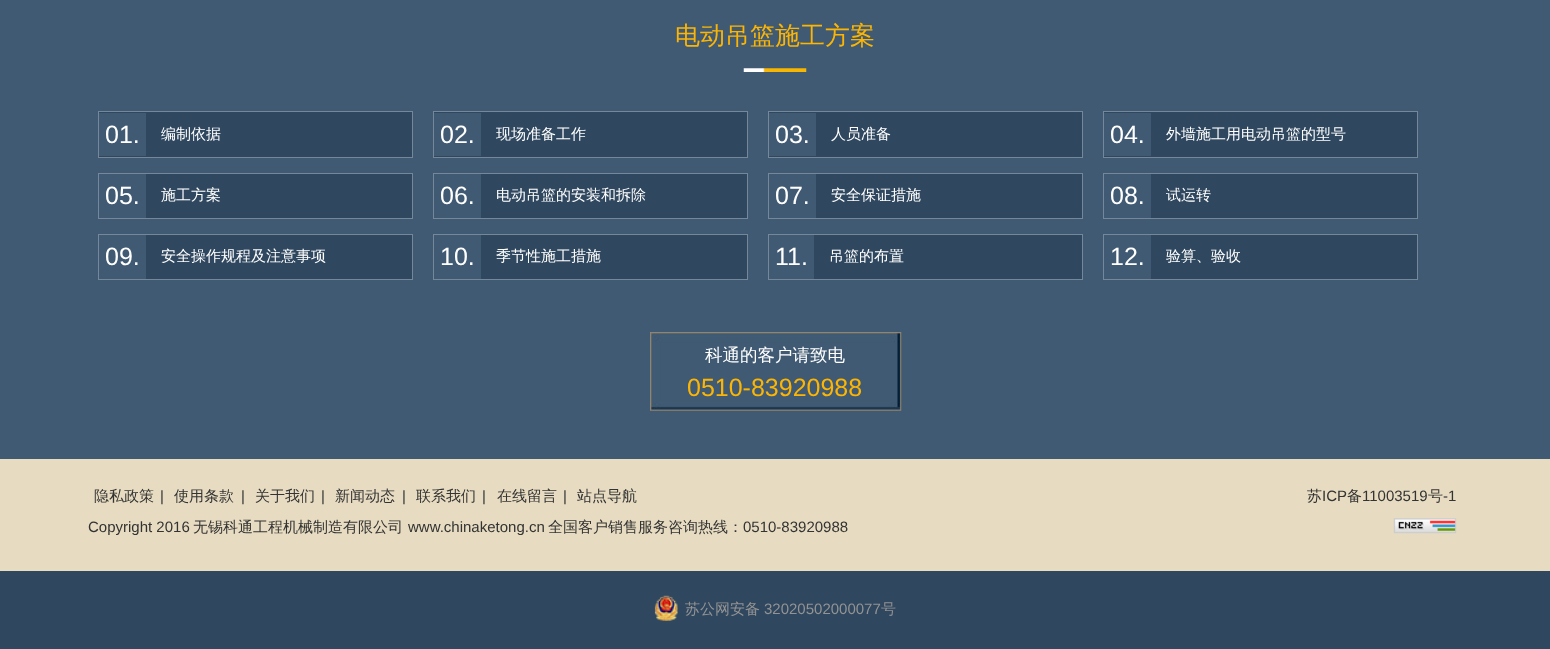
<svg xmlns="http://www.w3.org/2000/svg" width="1550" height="649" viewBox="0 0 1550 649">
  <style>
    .t1 { font: 500 25px WenQuanYi Zen Hei; fill: #fcb503; }
    .t2 { font: 25px Liberation Sans; fill: #fff; }
    .t3 { font: 500 15px WenQuanYi Zen Hei; fill: #fff; }
    .t4 { font: 500 17.5px WenQuanYi Zen Hei; fill: #fff; }
    .t5 { font: 25px Liberation Sans; fill: #fcb503; }
    .t6 { font: 500 15px WenQuanYi Zen Hei; fill: #333; }
    .t7 { font: 15px Liberation Sans; fill: #333; }
    .t8 { font: 500 15px WenQuanYi Zen Hei; fill: #939393; }
    .t9 { font: 15px Liberation Sans; fill: #939393; }
  </style>
  <rect width="100%" height="100%" fill="#405a73"/>
  <image x="743" y="68" width="64" height="4" href="images/1.png"/>
  <text x="675" y="44" class="t1">电动吊篮施工方案</text>
  <rect x="98.5" y="111.5" width="314" height="46" fill="#2f475f" stroke="#75889a"/>
  <rect x="99" y="113" width="47" height="43" fill="#405a73"/>
  <text x="105" y="143" class="t2">01.</text>
  <text x="161" y="139" class="t3">编制依据</text>
  <rect x="433.5" y="111.5" width="314" height="46" fill="#2f475f" stroke="#75889a"/>
  <rect x="434" y="113" width="47" height="43" fill="#405a73"/>
  <text x="440" y="143" class="t2">02.</text>
  <text x="496" y="139" class="t3">现场准备工作</text>
  <rect x="768.5" y="111.5" width="314" height="46" fill="#2f475f" stroke="#75889a"/>
  <rect x="769" y="113" width="47" height="43" fill="#405a73"/>
  <text x="775" y="143" class="t2">03.</text>
  <text x="831" y="139" class="t3">人员准备</text>
  <rect x="1103.5" y="111.5" width="314" height="46" fill="#2f475f" stroke="#75889a"/>
  <rect x="1104" y="113" width="47" height="43" fill="#405a73"/>
  <text x="1110" y="143" class="t2">04.</text>
  <text x="1166" y="139" class="t3">外墙施工用电动吊篮的型号</text>
  <rect x="146" y="174" width="266" height="44" fill="#2f475f"/>
  <rect x="98.5" y="173.5" width="314" height="45" fill="none" stroke="#75889a"/>
  <text x="105" y="204" class="t2">05.</text>
  <text x="161" y="200" class="t3">施工方案</text>
  <rect x="481" y="174" width="266" height="44" fill="#2f475f"/>
  <rect x="433.5" y="173.5" width="314" height="45" fill="none" stroke="#75889a"/>
  <text x="440" y="204" class="t2">06.</text>
  <text x="496" y="200" class="t3">电动吊篮的安装和拆除</text>
  <rect x="816" y="174" width="266" height="44" fill="#2f475f"/>
  <rect x="768.5" y="173.5" width="314" height="45" fill="none" stroke="#75889a"/>
  <text x="775" y="204" class="t2">07.</text>
  <text x="831" y="200" class="t3">安全保证措施</text>
  <rect x="1151" y="174" width="266" height="44" fill="#2f475f"/>
  <rect x="1103.5" y="173.5" width="314" height="45" fill="none" stroke="#75889a"/>
  <text x="1110" y="204" class="t2">08.</text>
  <text x="1166" y="200" class="t3">试运转</text>
  <rect x="146" y="235" width="266" height="44" fill="#2f475f"/>
  <rect x="98.5" y="234.5" width="314" height="45" fill="none" stroke="#75889a"/>
  <text x="105" y="265" class="t2">09.</text>
  <text x="161" y="261" class="t3">安全操作规程及注意事项</text>
  <rect x="481" y="235" width="266" height="44" fill="#2f475f"/>
  <rect x="433.5" y="234.5" width="314" height="45" fill="none" stroke="#75889a"/>
  <text x="440" y="265" class="t2">10.</text>
  <text x="496" y="261" class="t3">季节性施工措施</text>
  <rect x="814" y="235" width="268" height="44" fill="#2f475f"/>
  <rect x="768.5" y="234.5" width="314" height="45" fill="none" stroke="#75889a"/>
  <text x="775" y="265" class="t2">11.</text>
  <text x="829" y="261" class="t3">吊篮的布置</text>
  <rect x="1151" y="235" width="266" height="44" fill="#2f475f"/>
  <rect x="1103.5" y="234.5" width="314" height="45" fill="none" stroke="#75889a"/>
  <text x="1110" y="265" class="t2">12.</text>
  <text x="1166" y="261" class="t3">验算、验收</text>
  <image x="650" y="332" width="252" height="79" href="images/2.png"/>
  <text x="705" y="361" class="t4">科通的客户请致电</text>
  <text x="687" y="396" class="t5">0510-83920988</text>
  <rect x="0" y="571" width="1550" height="78" fill="#2f475f"/>
  <rect x="0" y="459" width="1550" height="112" fill="#e7dcc1"/>
  <text x="94" y="501" class="t6">隐私政策</text>
  <text x="160" y="501" class="t7">|</text>
  <text x="174" y="501" class="t6">使用条款</text>
  <text x="241" y="501" class="t7">|</text>
  <text x="255" y="501" class="t6">关于我们</text>
  <text x="321" y="501" class="t7">|</text>
  <text x="335" y="501" class="t6">新闻动态</text>
  <text x="402" y="501" class="t7">|</text>
  <text x="416" y="501" class="t6">联系我们</text>
  <text x="482" y="501" class="t7">|</text>
  <text x="497" y="501" class="t6">在线留言</text>
  <text x="563" y="501" class="t7">|</text>
  <text x="577" y="501" class="t6">站点导航</text>
  <text x="1307" y="501" class="t6">苏</text>
  <text x="1322" y="501" class="t7">ICP</text>
  <text x="1347" y="501" class="t6">备</text>
  <text x="1362" y="501" class="t7">11003519</text>
  <text x="1428" y="501" class="t6">号</text>
  <text x="1443" y="501" class="t7">-1</text>
  <text x="88" y="532" class="t7">Copyright 2016</text>
  <text x="193" y="532" class="t6">无锡科通工程机械制造有限公司</text>
  <text x="408" y="532" class="t7">www.chinaketong.cn</text>
  <text x="548" y="532" class="t6">全国客户销售服务咨询热线：</text>
  <text x="743" y="532" class="t7">0510-83920988</text>
  <image x="1393" y="518" width="64" height="16" href="images/3.png"/>
  <image x="654" y="595" width="24" height="26" href="images/4.png"/>
  <text x="685" y="614" class="t8">苏公网安备</text>
  <text x="764" y="614" class="t9">32020502000077</text>
  <text x="881" y="614" class="t8">号</text>
</svg>
